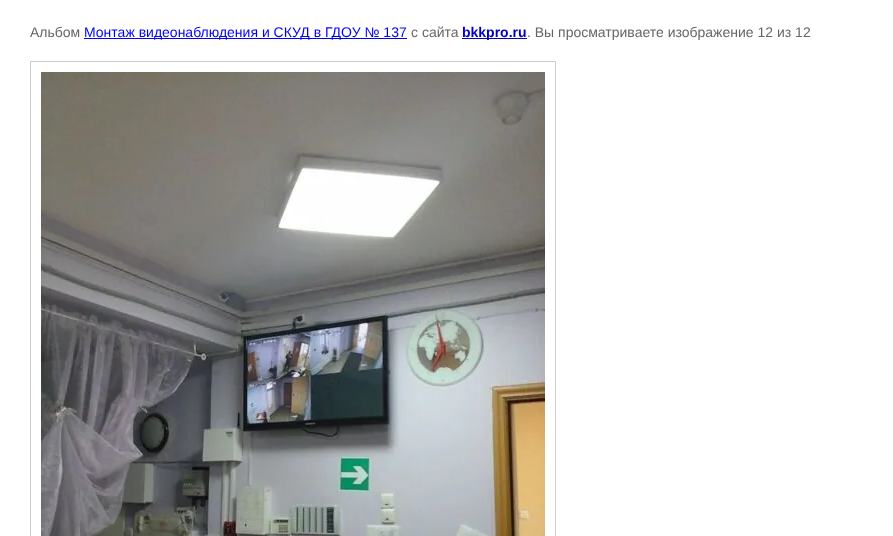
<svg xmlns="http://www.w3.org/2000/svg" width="893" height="536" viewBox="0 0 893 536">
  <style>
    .t1 { font: 14px Liberation Sans; fill: #666; }
    .t2 { font: 14px Liberation Sans; fill: #00f; }
    .t3 { font: bold 14px Liberation Sans; fill: #00c; }
  </style>
  <rect width="100%" height="100%" fill="#fff"/>
  <text x="30" y="37" class="t1">Альбом</text>
  <rect x="84" y="38" width="323" height="1" fill="#00f"/>
  <text x="84" y="37" class="t2">Монтаж видеонаблюдения и СКУД в ГДОУ № 137</text>
  <text x="411" y="37" class="t1">с сайта</text>
  <rect x="462" y="38" width="65" height="1" fill="#00c"/>
  <text x="462" y="37" class="t3">bkkpro.ru</text>
  <text x="527" y="37" class="t1">. Вы просматриваете изображение 12 из 12</text>
  <rect x="30.5" y="61.5" width="525" height="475" fill="none" stroke="#ccc"/>
  <image x="41" y="72" width="504" height="464" href="images/1.png"/>
</svg>
